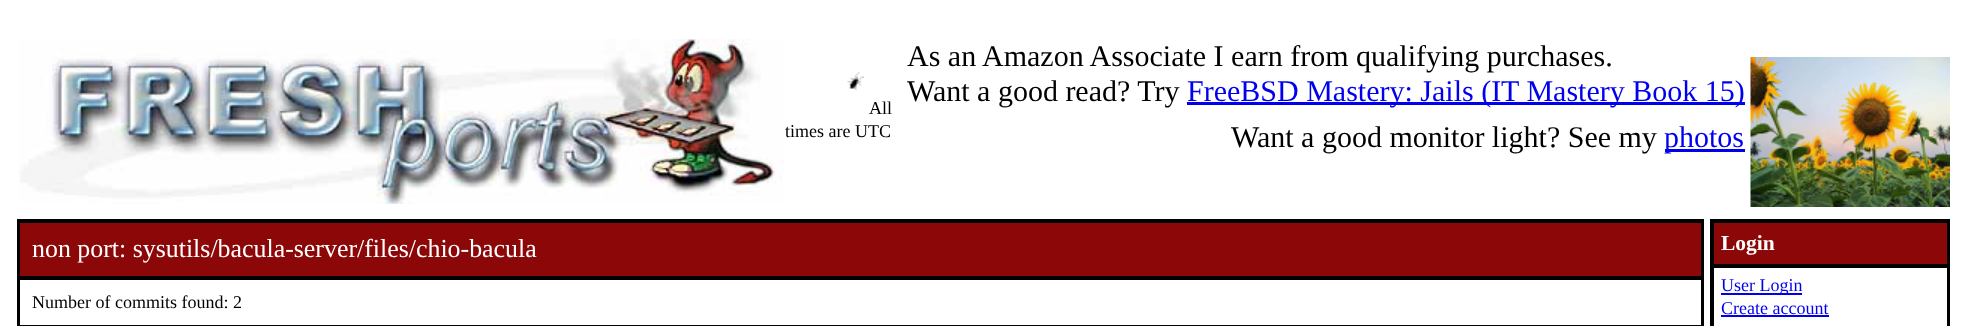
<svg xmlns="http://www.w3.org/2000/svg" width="1966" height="326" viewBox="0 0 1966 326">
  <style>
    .t1 { font: 30px Liberation Serif; fill: #000; }
    .t2 { font: 30px Liberation Serif; fill: #00e; }
    .t3 { font: 18px Liberation Serif; fill: #000; }
    .t4 { font: 25.9px Liberation Serif; fill: #fff; }
    .t5 { font: bold 21.5px Liberation Serif; fill: #fff; }
    .t6 { font: 18px Liberation Serif; fill: #00e; }
  </style>
  <rect width="100%" height="100%" fill="#fff"/>
  <image x="19" y="39" width="765" height="165" href="images/1.png"/>
  <image x="847" y="71" width="18" height="20" href="images/2.png"/>
  <text x="907" y="66" class="t1">As an Amazon Associate I earn from qualifying purchases.</text>
  <text x="907" y="101" class="t1">Want a good read? Try</text>
  <rect x="1187" y="102" width="558" height="3" fill="#00e"/>
  <text x="1187" y="101" class="t2">FreeBSD Mastery: Jails (IT Mastery Book 15)</text>
  <text x="869" y="114" class="t3">All</text>
  <text x="785" y="137" class="t3">times are UTC</text>
  <text x="1231" y="147" class="t1">Want a good monitor light? See my</text>
  <rect x="1665" y="149" width="80" height="3" fill="#00e"/>
  <text x="1664" y="147" class="t2">photos</text>
  <image x="1750" y="57" width="200" height="150" href="images/3.png"/>
  <rect x="18" y="220" width="1685" height="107" fill="none" stroke="#000" stroke-width="2"/>
  <rect x="19" y="222" width="1683" height="55" fill="#8c0707" stroke="#000" stroke-width="2"/>
  <text x="32" y="257" class="t4">non port: sysutils/bacula-server/files/chio-bacula</text>
  <rect x="19" y="279" width="1683" height="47" fill="none" stroke="#000" stroke-width="2"/>
  <text x="32" y="308" class="t3">Number of commits found: 2</text>
  <rect x="1711" y="220" width="238" height="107" fill="none" stroke="#000" stroke-width="2"/>
  <rect x="1713" y="222" width="235" height="43" fill="#8c0707" stroke="#000" stroke-width="2"/>
  <text x="1721" y="250" class="t5">Login</text>
  <rect x="1713" y="267" width="235" height="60" fill="none" stroke="#000" stroke-width="2"/>
  <rect x="1721" y="293" width="81" height="2" fill="#00e"/>
  <text x="1721" y="291" class="t6">User Login</text>
  <text x="1721" y="314" class="t6">Create account</text>
  <rect x="1721" y="315" width="108" height="2" fill="#00e"/>
</svg>
